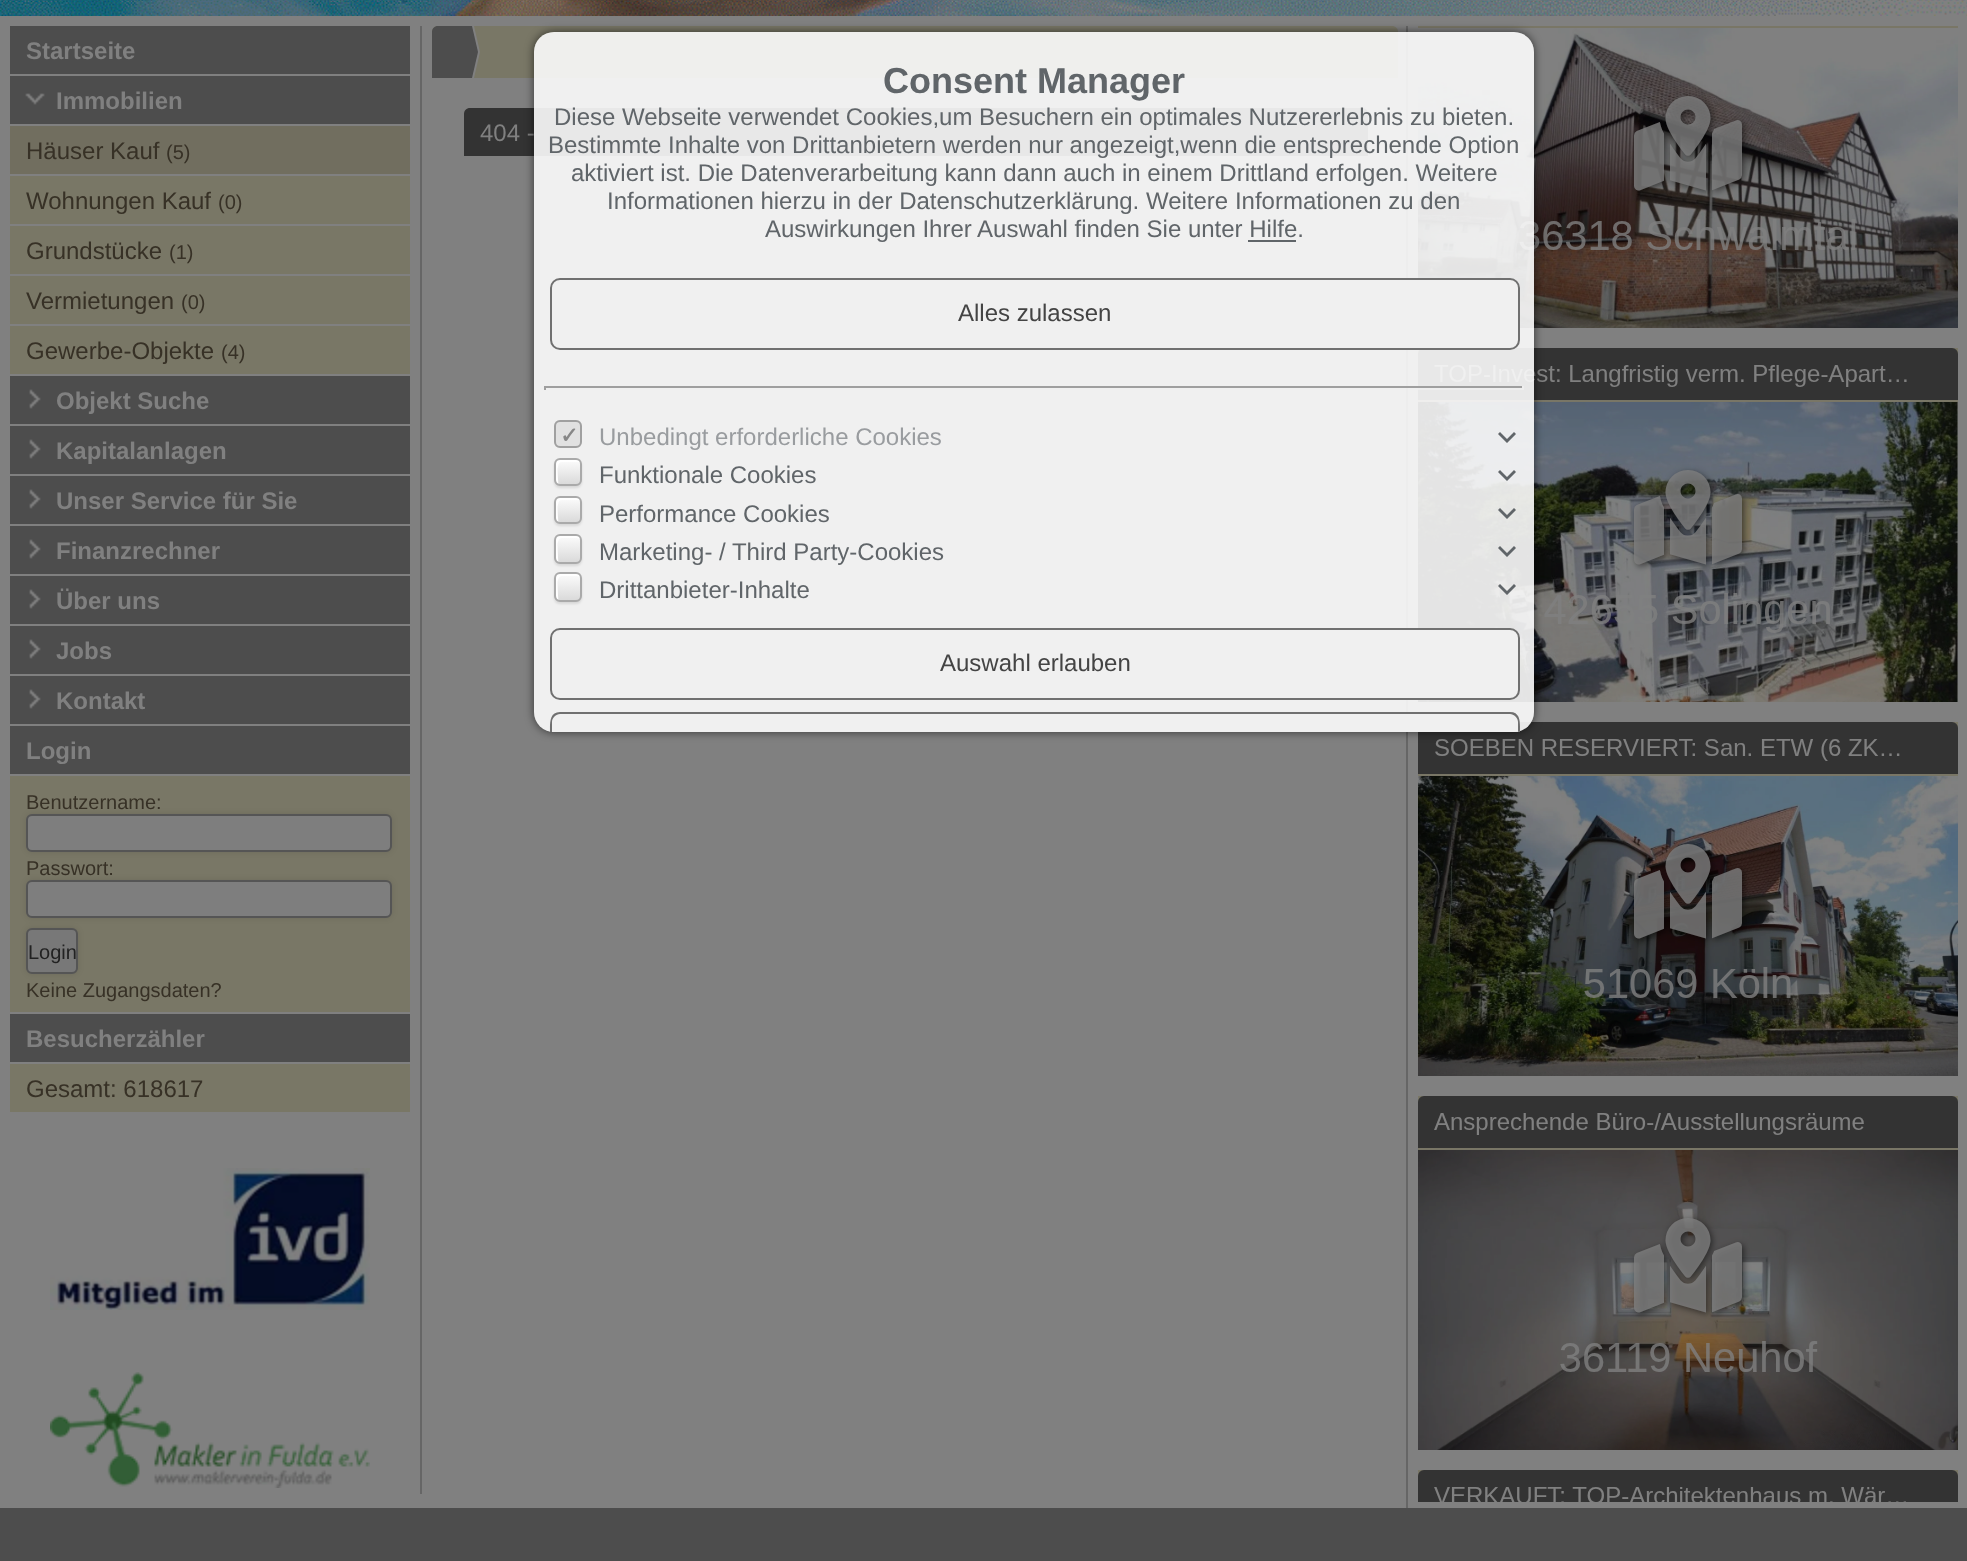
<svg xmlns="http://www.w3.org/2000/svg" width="1967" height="1561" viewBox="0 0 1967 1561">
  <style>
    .t1 { font: bold 24px Liberation Sans; fill: #808080; }
    .t2 { font: 24px Liberation Sans; fill: #373126; }
    .t3 { font: 20px Liberation Sans; fill: #373126; }
    .t4 { font: 20px Liberation Sans; fill: #222; }
    .t5 { font: 24px Liberation Sans; fill: #808080; }
    .t6 { font: bold 36px Liberation Sans; fill: #606569; }
    .t7 { font: 24px Liberation Sans; fill: #606569; }
    .t8 { font: 24px Liberation Sans; fill: #444; }
    .t9 { font: bold 22px DejaVu Sans; fill: #878787; }
    .t10 { font: 24px Liberation Sans; fill: #999c9f; }
  </style>
  <defs>
    <clipPath id="clip1"><path d="M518 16H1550V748H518ZM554 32H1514C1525 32 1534 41 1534 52V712C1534 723 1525 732 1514 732H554C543 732 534 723 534 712V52C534 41 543 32 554 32Z" clip-rule="evenodd"/></clipPath>
    <clipPath id="clip2"><rect x="554" y="458" width="28" height="28" rx="6"/></clipPath>
    <linearGradient id="g1" gradientUnits="userSpaceOnUse" x1="568" y1="460" x2="568" y2="484"><stop offset="0" stop-color="#fcfcfc"/><stop offset="1" stop-color="#dadada"/></linearGradient>
    <clipPath id="clip3"><rect x="554" y="496" width="28" height="28" rx="6"/></clipPath>
    <linearGradient id="g2" gradientUnits="userSpaceOnUse" x1="568" y1="498" x2="568" y2="522"><stop offset="0" stop-color="#fcfcfc"/><stop offset="1" stop-color="#dadada"/></linearGradient>
    <clipPath id="clip4"><rect x="554" y="534" width="28" height="30" rx="6"/></clipPath>
    <linearGradient id="g3" gradientUnits="userSpaceOnUse" x1="568" y1="536" x2="568" y2="562"><stop offset="0" stop-color="#fcfcfc"/><stop offset="1" stop-color="#dadada"/></linearGradient>
    <clipPath id="clip5"><rect x="554" y="572" width="28" height="30" rx="6"/></clipPath>
    <linearGradient id="g4" gradientUnits="userSpaceOnUse" x1="568" y1="574" x2="568" y2="600"><stop offset="0" stop-color="#fcfcfc"/><stop offset="1" stop-color="#dadada"/></linearGradient>
    <clipPath id="clip6"><rect x="534" y="32" width="1000" height="700" rx="20"/></clipPath>
  </defs>
  <rect width="100%" height="100%" fill="#808080"/>
  <image x="0" y="0" width="1967" height="16" href="images/1.png"/>
  <rect x="420" y="26" width="2" height="1468" fill="#666"/>
  <rect x="10" y="26" width="400" height="48" fill="#4d4d4d"/>
  <text x="26" y="59" class="t1">Startseite</text>
  <rect x="10" y="76" width="400" height="48" fill="#4d4d4d"/>
  <image x="25" y="93" width="20" height="12" href="images/2.png"/>
  <text x="56" y="109" class="t1">Immobilien</text>
  <rect x="10" y="126" width="400" height="48" fill="#716e5f"/>
  <text x="26" y="159" class="t2">Häuser Kauf</text>
  <text x="166" y="159" class="t3">(5)</text>
  <rect x="10" y="176" width="400" height="48" fill="#797766"/>
  <text x="26" y="209" class="t2">Wohnungen Kauf</text>
  <text x="218" y="209" class="t3">(0)</text>
  <rect x="10" y="226" width="400" height="48" fill="#797766"/>
  <text x="26" y="259" class="t2">Grundstücke</text>
  <text x="169" y="259" class="t3">(1)</text>
  <rect x="10" y="276" width="400" height="48" fill="#797766"/>
  <text x="26" y="309" class="t2">Vermietungen</text>
  <text x="181" y="309" class="t3">(0)</text>
  <rect x="10" y="326" width="400" height="48" fill="#797766"/>
  <text x="26" y="359" class="t2">Gewerbe-Objekte</text>
  <text x="221" y="359" class="t3">(4)</text>
  <rect x="10" y="376" width="400" height="48" fill="#4d4d4d"/>
  <image x="29" y="389" width="12" height="20" href="images/3.png"/>
  <text x="56" y="409" class="t1">Objekt Suche</text>
  <rect x="10" y="426" width="400" height="48" fill="#4d4d4d"/>
  <image x="29" y="439" width="12" height="20" href="images/3.png"/>
  <text x="56" y="459" class="t1">Kapitalanlagen</text>
  <rect x="10" y="476" width="400" height="48" fill="#4d4d4d"/>
  <image x="29" y="489" width="12" height="20" href="images/3.png"/>
  <text x="56" y="509" class="t1">Unser Service für Sie</text>
  <rect x="10" y="526" width="400" height="48" fill="#4d4d4d"/>
  <image x="29" y="539" width="12" height="20" href="images/3.png"/>
  <text x="56" y="559" class="t1">Finanzrechner</text>
  <rect x="10" y="576" width="400" height="48" fill="#4d4d4d"/>
  <image x="29" y="589" width="12" height="20" href="images/3.png"/>
  <text x="56" y="609" class="t1">Über uns</text>
  <rect x="10" y="626" width="400" height="48" fill="#4d4d4d"/>
  <image x="29" y="639" width="12" height="20" href="images/3.png"/>
  <text x="56" y="659" class="t1">Jobs</text>
  <rect x="10" y="676" width="400" height="48" fill="#4d4d4d"/>
  <image x="29" y="689" width="12" height="20" href="images/3.png"/>
  <text x="56" y="709" class="t1">Kontakt</text>
  <rect x="10" y="726" width="400" height="48" fill="#4d4d4d"/>
  <text x="26" y="759" class="t1">Login</text>
  <rect x="10" y="776" width="400" height="236" fill="#797766"/>
  <text x="26" y="809" class="t3">Benutzername:</text>
  <rect x="26" y="814" width="366" height="38" rx="6" fill="#0000001a" filter="blur(3px)"/>
  <rect x="27" y="815" width="364" height="36" rx="5" fill="#7e7e7e" stroke="#555" stroke-width="2"/>
  <text x="26" y="875" class="t3">Passwort:</text>
  <rect x="26" y="880" width="366" height="38" rx="6" fill="#0000001a" filter="blur(3px)"/>
  <rect x="27" y="881" width="364" height="36" rx="5" fill="#7e7e7e" stroke="#555" stroke-width="2"/>
  <rect x="26" y="928" width="52" height="46" rx="6" fill="#0000001a" filter="blur(3px)"/>
  <rect x="27" y="929" width="50" height="44" rx="5" fill="#787878" stroke="#555" stroke-width="2"/>
  <text x="28" y="959" class="t4">Login</text>
  <text x="26" y="997" class="t3">Keine Zugangsdaten?</text>
  <rect x="10" y="1014" width="400" height="48" fill="#4d4d4d"/>
  <text x="26" y="1047" class="t1">Besucherzähler</text>
  <rect x="10" y="1064" width="400" height="48" fill="#797766"/>
  <text x="26" y="1097" class="t2">Gesamt: 618617</text>
  <image x="50" y="1168" width="320" height="142" href="images/4.png"/>
  <image x="50" y="1372" width="320" height="116" href="images/5.png"/>
  <path d="M438 26H1392C1395.5 26 1398 28.5 1398 32V78H432V32C432 28.5 434.5 26 438 26Z" fill="#797766"/>
  <path d="M438 26H454V78H432V32C432 28.5 434.5 26 438 26Z" fill="#4d4d4d"/>
  <path d="M474 26L480 52L474 78H456V26Z" fill="#808080"/>
  <path d="M472 26L478 52L472 78H454V26Z" fill="#4d4d4d"/>
  <path d="M470 108H1362C1365.5 108 1368 110.5 1368 114V156H464V114C464 110.5 466.5 108 470 108Z" fill="#333"/>
  <text x="480" y="141" class="t5">404 -</text>
  <rect x="1406" y="26" width="2" height="1482" fill="#666"/>
  <image x="1418" y="26" width="540" height="1476" href="images/6.png"/>
  <rect x="0" y="1508" width="1967" height="53" fill="#4d4d4d"/>
  <g clip-path="url(#clip1)">
    <rect x="534" y="32" width="1000" height="700" rx="20" fill="#00000099" filter="blur(5px)"/>
  </g>
  <rect x="534" y="32" width="1000" height="700" rx="20" fill="#fcfcfce6"/>
  <text x="883" y="93" class="t6">Consent Manager</text>
  <text x="554" y="125" class="t7">Diese Webseite verwendet Cookies,um Besuchern ein optimales Nutzererlebnis zu bieten.</text>
  <text x="548" y="153" class="t7">Bestimmte Inhalte von Drittanbietern werden nur angezeigt,wenn die entsprechende Option</text>
  <text x="571" y="181" class="t7">aktiviert ist. Die Datenverarbeitung kann dann auch in einem Drittland erfolgen. Weitere</text>
  <text x="607" y="209" class="t7">Informationen hierzu in der Datenschutzerklärung. Weitere Informationen zu den</text>
  <text x="765" y="237" class="t7">Auswirkungen Ihrer Auswahl finden Sie unter Hilfe.</text>
  <rect x="1248" y="240" width="48" height="2" fill="#606569"/>
  <rect x="551" y="279" width="968" height="70" rx="9" fill="#f0f0f0" stroke="#707070" stroke-width="2"/>
  <text x="958" y="321" class="t8">Alles zulassen</text>
  <rect x="544" y="386" width="980" height="2" fill="#9f9f9f"/>
  <rect x="1522" y="386" width="2" height="4" fill="#eee"/>
  <rect x="1418" y="388" width="106" height="2" fill="#eee"/>
  <rect x="544" y="386" width="2" height="4" fill="#9f9f9f"/>
  <rect x="554" y="420" width="28" height="28" rx="6" fill="#e1e1e1"/>
  <rect x="555" y="421" width="26" height="26" rx="5" fill="none" stroke="#60606080" stroke-width="2"/>
  <text x="560" y="443" class="t9">✓</text>
  <text x="599" y="445" class="t10">Unbedingt erforderliche Cookies</text>
  <path d="M1514 432L1516 434L1507 443L1498 434L1500 432L1507 439ZM1514 470L1516 472L1507 481L1498 472L1500 470L1507 477Z" fill="#606569"/>
  <rect x="554" y="460" width="28" height="28" rx="6" fill="#0000001a" filter="blur(1px)"/>
  <g clip-path="url(#clip2)">
    <rect x="554" y="460" width="28" height="24" fill="url(#g1)"/>
  </g>
  <path d="M562 462H575C577 462 578.5 462 580 462.5C579 461 577.5 460 576 460H560C558 460 556 462 556 464V480C556 481.5 557 483 558.5 483.5C558 481.5 557.5 470.5 557.5 468.5L558.5 464.5C559 463 560 462 562 462Z" fill="#fff"/>
  <rect x="555" y="459" width="26" height="26" rx="5" fill="none" stroke="#aaa" stroke-width="2"/>
  <text x="599" y="483" class="t7">Funktionale Cookies</text>
  <rect x="554" y="498" width="28" height="28" rx="6" fill="#0000001a" filter="blur(1px)"/>
  <g clip-path="url(#clip3)">
    <rect x="554" y="498" width="28" height="24" fill="url(#g2)"/>
  </g>
  <path d="M562 500H575C577 500 578.5 500 580 500.5C579 499 577.5 498 576 498H560C558 498 556 500 556 502V518C556 519.5 557 521 558.5 521.5C558 519.5 557.5 508.5 557.5 506.5L558.5 502.5C559 501 560 500 562 500Z" fill="#fff"/>
  <rect x="555" y="497" width="26" height="26" rx="5" fill="none" stroke="#aaa" stroke-width="2"/>
  <text x="599" y="522" class="t7">Performance Cookies</text>
  <path d="M1514 508L1516 510L1507 519L1498 510L1500 508L1507 515ZM1514 546L1516 548L1507 557L1498 548L1500 546L1507 553Z" fill="#606569"/>
  <rect x="554" y="536" width="28" height="30" rx="6" fill="#0000001a" filter="blur(1px)"/>
  <g clip-path="url(#clip4)">
    <rect x="554" y="536" width="28" height="26" fill="url(#g3)"/>
  </g>
  <path d="M562 538H575C577 538 579 538.5 580 539C579.5 537 578 536 576 536H560C558 536 556 538 556 540V558C556 559.5 557 561 558.5 561.5C558 560.5 557.5 546 557.5 543.5L558.5 540.5C559 539 560.5 538 562 538Z" fill="#fff"/>
  <rect x="555" y="535" width="26" height="28" rx="5" fill="none" stroke="#aaa" stroke-width="2"/>
  <text x="599" y="560" class="t7">Marketing- / Third Party-Cookies</text>
  <rect x="554" y="574" width="28" height="30" rx="6" fill="#0000001a" filter="blur(1px)"/>
  <g clip-path="url(#clip5)">
    <rect x="554" y="574" width="28" height="26" fill="url(#g4)"/>
  </g>
  <path d="M562 576H575C577 576 579 576.5 580 577C579.5 575 578 574 576 574H560C558 574 556 576 556 578V596C556 597.5 557 599 558.5 599.5C558 598.5 557.5 584 557.5 581.5L558.5 578.5C559 577 560.5 576 562 576Z" fill="#fff"/>
  <rect x="555" y="573" width="26" height="28" rx="5" fill="none" stroke="#aaa" stroke-width="2"/>
  <text x="599" y="598" class="t7">Drittanbieter-Inhalte</text>
  <path d="M1514 584L1516 586L1507 595L1498 586L1500 584L1507 591Z" fill="#606569"/>
  <rect x="551" y="629" width="968" height="70" rx="9" fill="#f0f0f0" stroke="#707070" stroke-width="2"/>
  <text x="940" y="671" class="t8">Auswahl erlauben</text>
  <g clip-path="url(#clip6)">
    <path d="M560 712H1510C1515.5 712 1520 716.5 1520 722V732H550V722C550 716.5 554.5 712 560 712Z" fill="#f0f0f0"/>
  </g>
  <path d="M560 712C549 712 550 724 550 732H552V722C552 718 556 714 560 714H1510C1514 714 1518 718 1518 722V732L1520 731C1520 723 1521 712 1510 712Z" fill="#707070"/>
</svg>
